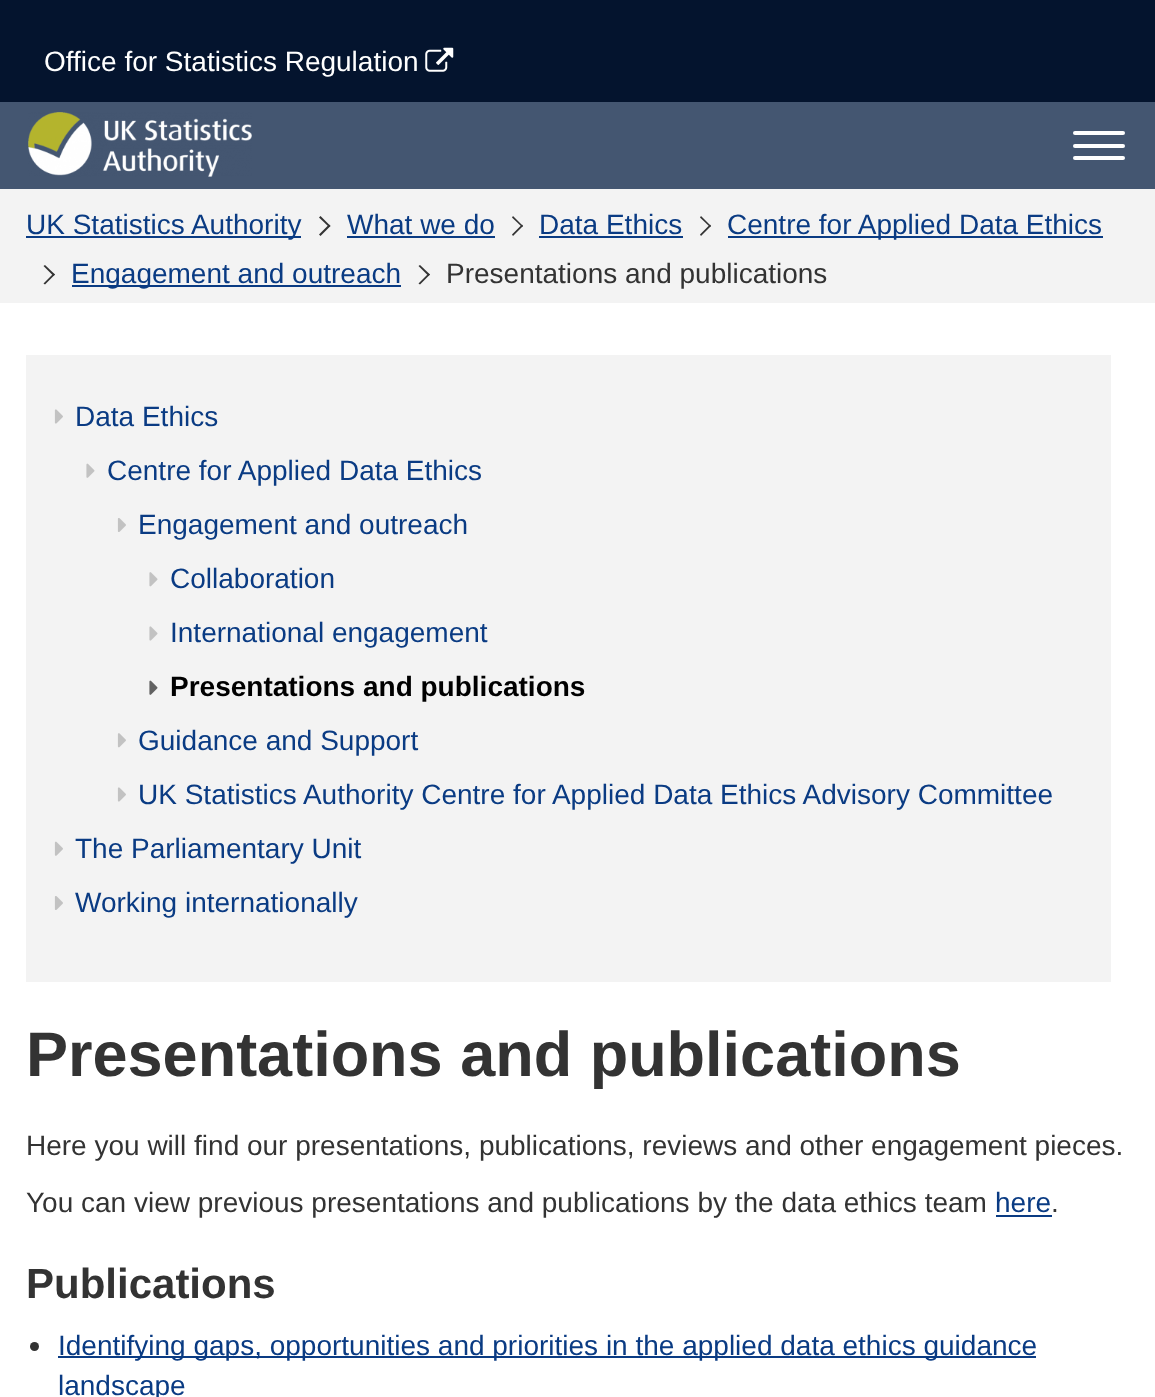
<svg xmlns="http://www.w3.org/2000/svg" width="1155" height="1397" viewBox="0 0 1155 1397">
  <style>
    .t1 { font: 28px Liberation Sans; fill: #fff; }
    .t2 { font: 28px Liberation Sans; fill: #0a3b83; }
    .t3 { font: 28px Liberation Sans; fill: #333; }
    .t4 { font: bold 28px Liberation Sans; fill: #000; }
    .t5 { font: bold 63px Liberation Sans; fill: #333; }
    .t6 { font: bold 42px Liberation Sans; fill: #333; }
  </style>
  <rect width="100%" height="100%" fill="#04142e"/>
  <text x="44" y="71" class="t1">Office for Statistics Regulation</text>
  <image x="425" y="47" width="29" height="25" href="images/1.png"/>
  <rect x="0" y="102" width="1155" height="87" fill="#445671"/>
  <image x="28" y="112" width="224" height="65" href="images/2.png"/>
  <rect x="1073" y="131" width="52" height="4" rx="2" fill="#fff"/>
  <rect x="1073" y="144" width="52" height="4" rx="2" fill="#fff"/>
  <rect x="1073" y="156" width="52" height="4" rx="2" fill="#fff"/>
  <rect x="0" y="303" width="1155" height="1094" fill="#fff"/>
  <rect x="0" y="189" width="1155" height="114" fill="#f3f3f3"/>
  <rect x="26" y="236" width="275" height="2" fill="#0a3b83"/>
  <text x="26" y="234" class="t2">UK Statistics Authority</text>
  <path d="M320.5 216L330.5 226L329 227L319 217.5Z" fill="#333"/>
  <path d="M329 224.5L330.5 226L320.5 236L319 234.5Z" fill="#333"/>
  <text x="347" y="234" class="t2">What we do</text>
  <rect x="347" y="236" width="148" height="2" fill="#0a3b83"/>
  <path d="M513 216L523 226L522 227L512 217.5Z" fill="#333"/>
  <path d="M522 224.5L523 226L513 236L512 234.5Z" fill="#333"/>
  <text x="539" y="234" class="t2">Data Ethics</text>
  <rect x="539" y="236" width="144" height="2" fill="#0a3b83"/>
  <path d="M701 216L711 226L710 227L700 217.5Z" fill="#333"/>
  <path d="M710 224.5L711 226L701 236L700 234.5Z" fill="#333"/>
  <rect x="728" y="236" width="375" height="2" fill="#0a3b83"/>
  <text x="727" y="234" class="t2">Centre for Applied Data Ethics</text>
  <path d="M45 265L55 274.5L53.5 276L43.5 266Z" fill="#333"/>
  <path d="M53.5 273.5L55 274.5L45 284.5L43.5 283.5Z" fill="#333"/>
  <rect x="72" y="285" width="329" height="2" fill="#0a3b83"/>
  <text x="71" y="283" class="t2">Engagement and outreach</text>
  <path d="M420 265L430 274.5L428.5 276L418.5 266Z" fill="#333"/>
  <path d="M428.5 273.5L430 274.5L420 284.5L418.5 283.5Z" fill="#333"/>
  <text x="446" y="283" class="t3">Presentations and publications</text>
  <rect x="26" y="355" width="1085" height="627" fill="#f3f3f3"/>
  <image x="54" y="409" width="9" height="15" href="images/3.png"/>
  <text x="75" y="426" class="t2">Data Ethics</text>
  <image x="86" y="463" width="9" height="15" href="images/4.png"/>
  <text x="107" y="480" class="t2">Centre for Applied Data Ethics</text>
  <image x="117" y="518" width="9" height="14" href="images/5.png"/>
  <text x="138" y="534" class="t2">Engagement and outreach</text>
  <image x="149" y="572" width="9" height="15" href="images/6.png"/>
  <text x="170" y="588" class="t2">Collaboration</text>
  <image x="149" y="626" width="9" height="15" href="images/7.png"/>
  <text x="170" y="642" class="t2">International engagement</text>
  <image x="149" y="680" width="9" height="15" href="images/8.png"/>
  <text x="170" y="696" class="t4">Presentations and publications</text>
  <image x="117" y="733" width="9" height="15" href="images/9.png"/>
  <text x="138" y="750" class="t2">Guidance and Support</text>
  <image x="117" y="787" width="9" height="15" href="images/3.png"/>
  <text x="138" y="804" class="t2">UK Statistics Authority Centre for Applied Data Ethics Advisory Committee</text>
  <image x="54" y="841" width="9" height="15" href="images/10.png"/>
  <text x="75" y="858" class="t2">The Parliamentary Unit</text>
  <image x="54" y="896" width="9" height="14" href="images/5.png"/>
  <text x="75" y="912" class="t2">Working internationally</text>
  <text x="26" y="1076" class="t5">Presentations and publications</text>
  <text x="26" y="1155" class="t3">Here you will find our presentations, publications, reviews and other engagement pieces.</text>
  <text x="26" y="1212" class="t3">You can view previous presentations and publications by the data ethics team</text>
  <text x="995" y="1212" class="t2">here</text>
  <rect x="996" y="1215" width="56" height="2" fill="#0a3b83"/>
  <text x="1051" y="1212" class="t3">.</text>
  <text x="26" y="1298" class="t6">Publications</text>
  <circle cx="34.5" cy="1346.5" r="4.5" fill="#333"/>
  <rect x="58" y="1356" width="978" height="2" fill="#0a3b83"/>
  <text x="58" y="1355" class="t2">Identifying gaps, opportunities and priorities in the applied data ethics guidance</text>
  <text x="58" y="1395" class="t2">landscape</text>
</svg>
